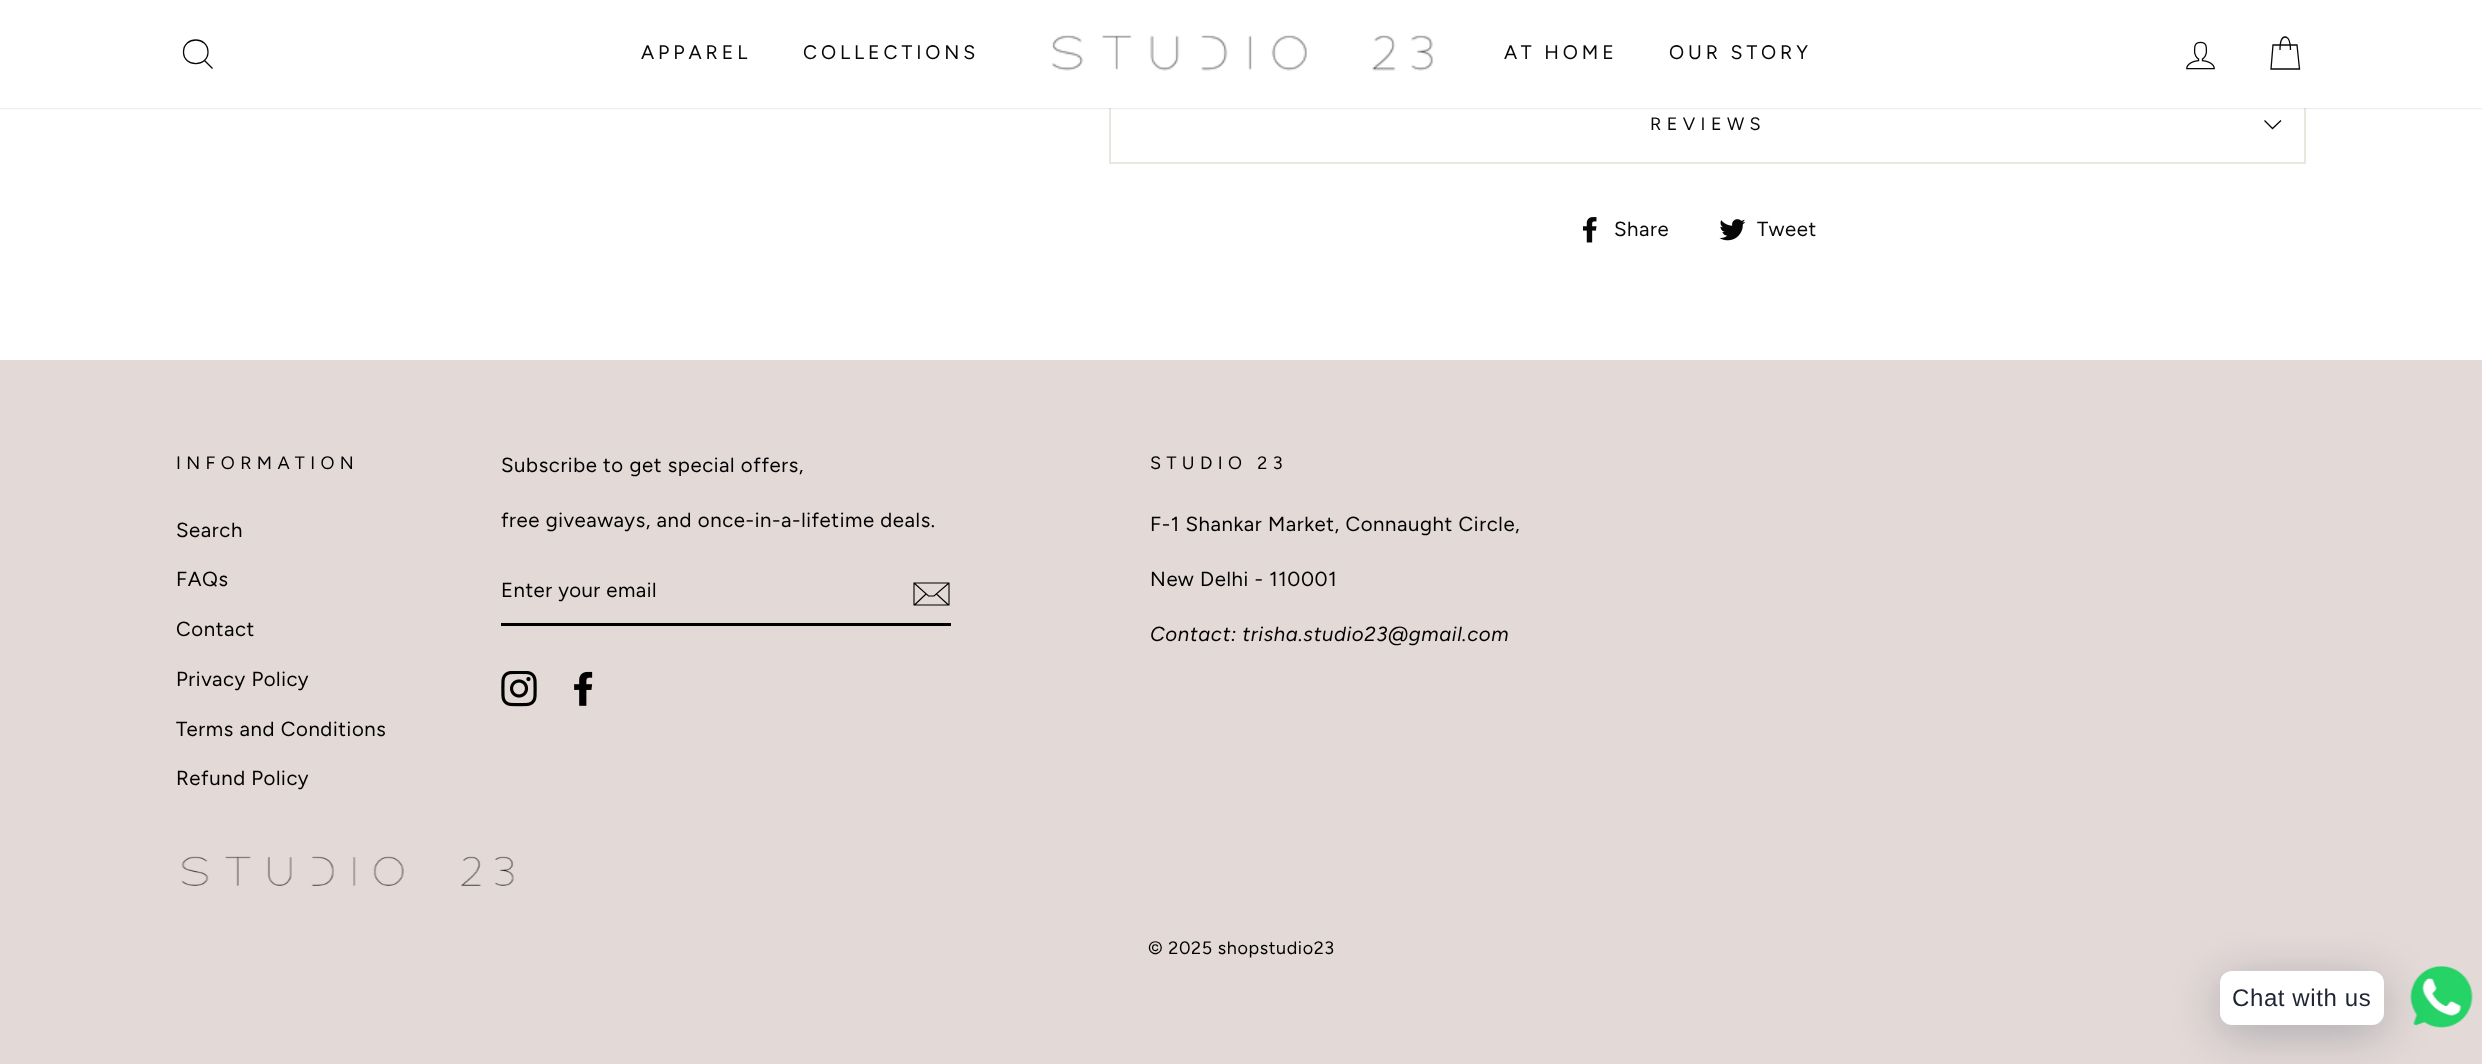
<svg xmlns="http://www.w3.org/2000/svg" width="2482" height="1064" viewBox="0 0 2482 1064">
  <style>
    .t1 { font: 19.5px Figtree; letter-spacing: 3.9px; fill: #080808; }
    .t2 { font: 18px Figtree; letter-spacing: 5.4px; fill: #080808; }
    .t3 { font: 20.4px Figtree; letter-spacing: 0.6px; fill: #080808; }
    .t4 { font: 18px Figtree; letter-spacing: 5.4px; fill: #000; }
    .t5 { font: 20.4px Figtree; letter-spacing: 0.6px; fill: #000; }
    .t6 { font: 20.4px Figtree; letter-spacing: 0.5px; fill: #000; }
    .t7 { font: italic 20.4px Figtree; letter-spacing: 0.6px; fill: #000; }
    .t8 { font: 18px Figtree; letter-spacing: 0.6px; fill: #000; }
    .t9 { font: 24px Liberation Sans; letter-spacing: 0.6px; fill: #1e2433; }
  </style>
  <rect width="100%" height="100%" fill="#fff"/>
  <rect x="2304" y="108" width="2" height="54" fill="#e8e8e1"/>
  <rect x="1109" y="108" width="2" height="54" fill="#e8e8e1"/>
  <rect x="0" y="0" width="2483" height="108" fill="#00000033" filter="blur(1px)"/>
  <rect x="0" y="0" width="2482" height="108" fill="#fff"/>
  <path d="M208 52C208 67.5 183.5 67.5 183.5 52C183.5 36 208 36 208 52ZM212.5 68.5L204.5 60.5" fill="none" stroke="#080808" stroke-width="1.3"/>
  <text x="641" y="59" class="t1">APPAREL</text>
  <text x="803" y="59" class="t1">COLLECTIONS</text>
  <image x="1051" y="35" width="382" height="36" href="images/1.png"/>
  <text x="1504" y="59" class="t1">AT HOME</text>
  <text x="1669" y="59" class="t1">OUR STORY</text>
  <image x="2186" y="41" width="29" height="29" href="images/2.png"/>
  <path d="M2280 50C2280 39.5 2282 37 2285 37C2288 37 2290.5 39.5 2290.5 50M2273 45H2297L2299.5 69H2271Z" fill="none" stroke="#080808" stroke-width="1.3"/>
  <rect x="1109" y="162" width="1197" height="2" fill="#e8e8e1"/>
  <text x="1650" y="130" class="t2">REVIEWS</text>
  <path d="M2264.5 120.5L2272.5 128.5L2281 120.5" fill="none" stroke="#080808" stroke-width="1.3"/>
  <image x="1583" y="217" width="14" height="26" href="images/3.png"/>
  <text x="1614" y="236" class="t3">Share</text>
  <image x="1719" y="219" width="27" height="22" href="images/4.png"/>
  <text x="1757" y="236" class="t3">Tweet</text>
  <rect x="0" y="360" width="2482" height="704" fill="#e3d9d7"/>
  <text x="176" y="469" class="t4">INFORMATION</text>
  <text x="176" y="537" class="t5">Search</text>
  <text x="176" y="586" class="t5">FAQs</text>
  <text x="176" y="636" class="t5">Contact</text>
  <text x="176" y="686" class="t5">Privacy Policy</text>
  <text x="176" y="736" class="t5">Terms and Conditions</text>
  <text x="176" y="785" class="t5">Refund Policy</text>
  <text x="501" y="472" class="t5">Subscribe to get special offers,</text>
  <text x="501" y="527" class="t5">free giveaways, and once-in-a-lifetime deals.</text>
  <rect x="501" y="623" width="450" height="3" fill="#000"/>
  <text x="501" y="597" class="t6">Enter your email</text>
  <path d="M949 605H914V583H949ZM914 583L928.5 596H934L949 583M926 594L914.5 605M948.5 605L936.5 594" fill="none" stroke="#000" stroke-width="1.1"/>
  <image x="501" y="671" width="36" height="36" href="images/5.png"/>
  <image x="574" y="671" width="19" height="35" href="images/6.png"/>
  <text x="1150" y="469" class="t4">STUDIO 23</text>
  <text x="1150" y="531" class="t5">F-1 Shankar Market, Connaught Circle,</text>
  <text x="1150" y="586" class="t5">New Delhi - 110001</text>
  <text x="1150" y="641" class="t7">Contact: trisha.studio23@gmail.com</text>
  <image x="181" y="856" width="333" height="30" href="images/7.png"/>
  <text x="1148" y="954" class="t8">© 2025 shopstudio23</text>
  <image x="2410" y="966" width="63" height="62" href="images/8.png"/>
  <rect x="2220" y="980" width="164" height="54" rx="12" fill="#00122e3d" filter="blur(24px)"/>
  <rect x="2220" y="971" width="164" height="54" rx="12" fill="#fff"/>
  <text x="2232" y="1006" class="t9">Chat with us</text>
</svg>
